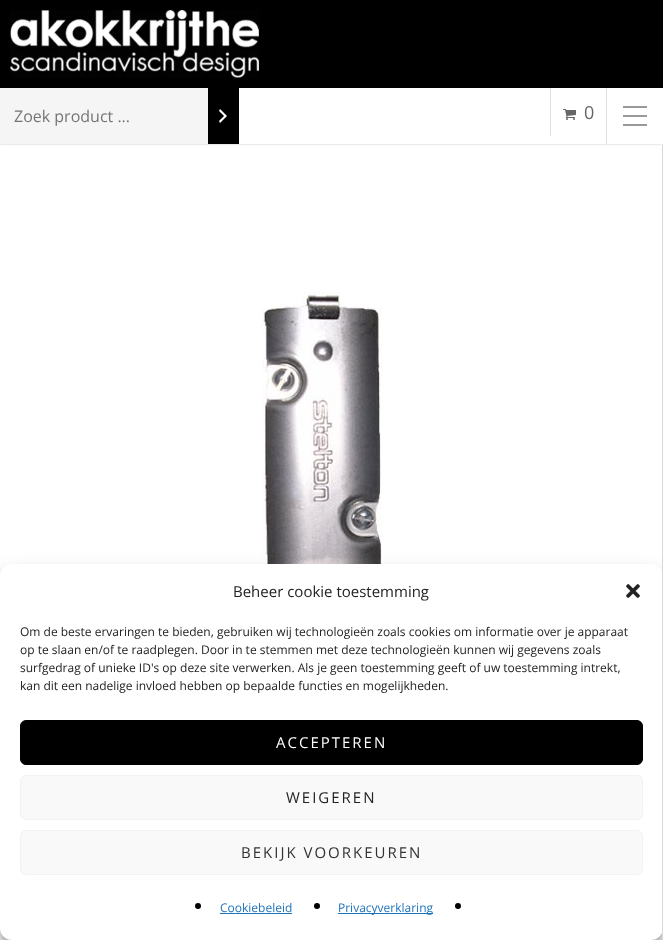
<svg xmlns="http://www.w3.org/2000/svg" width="663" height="940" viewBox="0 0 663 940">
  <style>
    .t1 { font: 16px Open Sans; fill: #757575; }
    .t2 { font: 18px Open Sans; fill: #666; }
    .t3 { font: 15px Open Sans; fill: #222; }
    .t4 { font: 12px Open Sans; fill: #222; }
    .t5 { font: 15px Open Sans; letter-spacing: 2px; fill: #fff; }
    .t6 { font: 15px Open Sans; letter-spacing: 2px; fill: #222; }
    .t7 { font: 15px Open Sans; letter-spacing: 2px; fill: #333; }
    .t8 { font: 12px Open Sans; fill: #1e73be; }
  </style>
  <defs>
    <clipPath id="clip1"><path d="M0 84H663V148H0ZM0 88H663V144H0Z" clip-rule="evenodd"/></clipPath>
  </defs>
  <rect width="100%" height="100%" fill="#fff"/>
  <rect x="0" y="0" width="663" height="88" fill="#000"/>
  <image x="10" y="10" width="250" height="68" href="images/1.png"/>
  <g clip-path="url(#clip1)">
    <rect x="0" y="88" width="663" height="56" fill="#0000003d" filter="blur(1px)"/>
  </g>
  <rect x="0" y="88" width="208" height="56" fill="#f5f5f5"/>
  <text x="14" y="122" class="t1">Zoek product ...</text>
  <rect x="208" y="88" width="31" height="56" fill="#000"/>
  <image x="219" y="109" width="8" height="14" href="images/2.png"/>
  <rect x="550" y="88" width="1" height="48" fill="#e0e0e0"/>
  <image x="563" y="109" width="13" height="11" href="images/3.png"/>
  <text x="584" y="119" class="t2">0</text>
  <rect x="606" y="88" width="1" height="56" fill="#e0e0e0"/>
  <rect x="623" y="106" width="24" height="2" fill="#999"/>
  <rect x="623" y="115" width="24" height="2" fill="#999"/>
  <rect x="623" y="124" width="24" height="2" fill="#999"/>
  <image x="262" y="292" width="144" height="272" href="images/4.png"/>
  <rect x="0" y="570" width="663" height="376" rx="12" fill="#0000003b" filter="blur(3px)"/>
  <rect x="0" y="574" width="663" height="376" rx="12" fill="#00000030" filter="blur(10px)"/>
  <rect x="0" y="564" width="663" height="376" rx="12" fill="#fff"/>
  <text x="233" y="597" class="t3">Beheer cookie toestemming</text>
  <image x="626" y="584" width="14" height="14" href="images/5.png"/>
  <text x="20" y="636" class="t4">Om de beste ervaringen te bieden, gebruiken wij technologieën zoals cookies om informatie over je apparaat</text>
  <text x="20" y="654" class="t4">op te slaan en/of te raadplegen. Door in te stemmen met deze technologieën kunnen wij gegevens zoals</text>
  <text x="20" y="672" class="t4">surfgedrag of unieke ID's op deze site verwerken. Als je geen toestemming geeft of uw toestemming intrekt,</text>
  <text x="20" y="690" class="t4">kan dit een nadelige invloed hebben op bepaalde functies en mogelijkheden.</text>
  <rect x="20.5" y="720.5" width="622" height="44" rx="5.5" fill="#000" stroke="#000"/>
  <text x="276" y="748" class="t5">ACCEPTEREN</text>
  <rect x="20.5" y="775.5" width="622" height="44" rx="5.5" fill="#f9f9f9" stroke="#f2f2f2"/>
  <text x="286" y="803" class="t6">WEIGEREN</text>
  <rect x="20.5" y="830.5" width="622" height="44" rx="5.5" fill="#f9f9f9" stroke="#f2f2f2"/>
  <text x="241" y="858" class="t7">BEKIJK VOORKEUREN</text>
  <circle cx="198" cy="906" r="3" fill="#000"/>
  <text x="220" y="912" class="t8">Cookiebeleid</text>
  <rect x="220" y="913" width="72" height="1" fill="#1e73be"/>
  <circle cx="317" cy="906" r="3" fill="#000"/>
  <rect x="338" y="913" width="95" height="1" fill="#1e73be"/>
  <text x="338" y="912" class="t8">Privacyverklaring</text>
  <circle cx="458" cy="906" r="3" fill="#000"/>
  <rect x="662" y="145" width="1" height="795" fill="#d7d7d7"/>
</svg>
